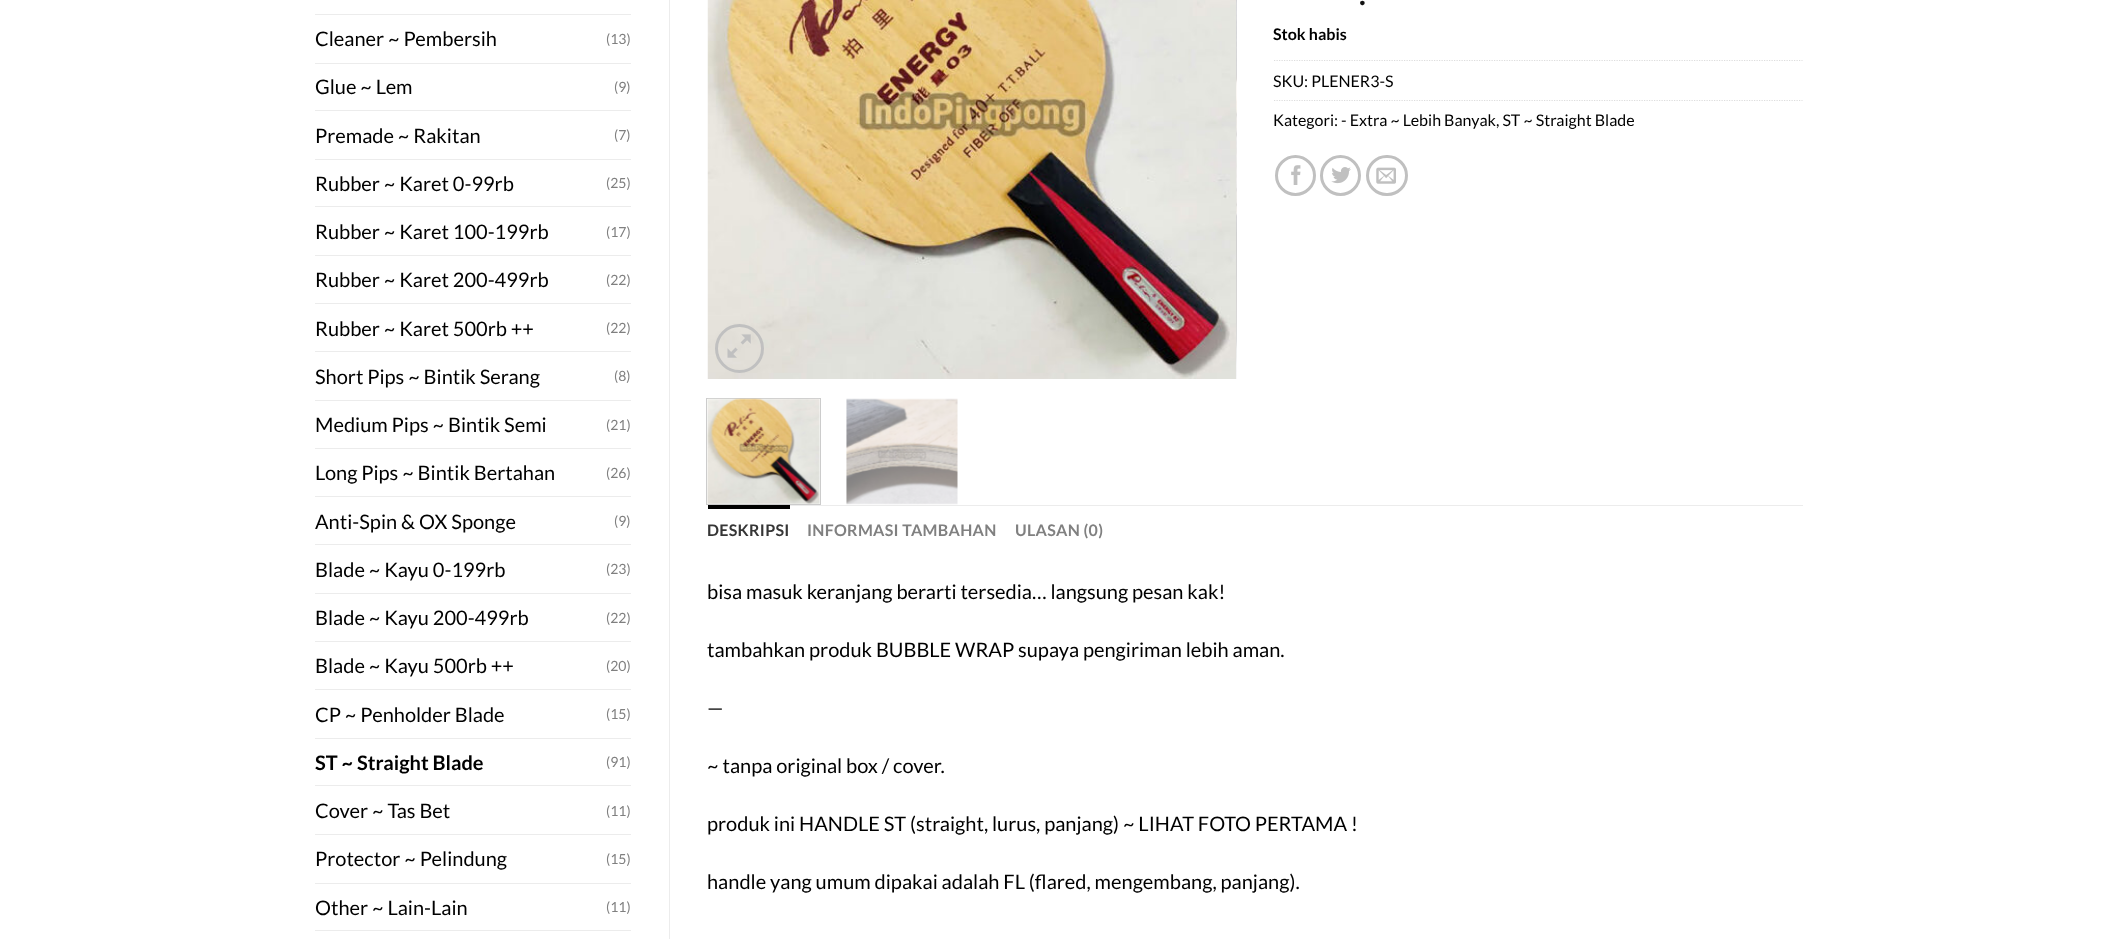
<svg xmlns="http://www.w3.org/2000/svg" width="2117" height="939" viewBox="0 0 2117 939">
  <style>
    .t1 { font: 20px Lato; fill: #000; }
    .t2 { font: 14px Lato; fill: #808080; }
    .t3 { font: bold 20px Lato; fill: #000; }
    .t4 { font: bold 30px Lato; fill: #111; }
    .t5 { font: bold 16px Lato; fill: #000; }
    .t6 { font: 16px Lato; fill: #000; }
    .t7 { font: bold 16px Lato; letter-spacing: 0.3px; fill: #363636; }
    .t8 { font: bold 16px Lato; letter-spacing: 0.3px; fill: #808080; }
  </style>
  <rect width="100%" height="100%" fill="#fff"/>
  <rect x="315" y="14" width="316" height="1" fill="#ececec"/>
  <text x="315" y="46" class="t1">Cleaner ~ Pembersih</text>
  <text x="606" y="44" class="t2">(13)</text>
  <rect x="315" y="63" width="316" height="1" fill="#ececec"/>
  <text x="315" y="94" class="t1">Glue ~ Lem</text>
  <text x="614" y="92" class="t2">(9)</text>
  <rect x="315" y="110" width="316" height="1" fill="#ececec"/>
  <text x="315" y="143" class="t1">Premade ~ Rakitan</text>
  <text x="614" y="140" class="t2">(7)</text>
  <rect x="315" y="159" width="316" height="1" fill="#ececec"/>
  <text x="315" y="191" class="t1">Rubber ~ Karet 0-99rb</text>
  <text x="606" y="188" class="t2">(25)</text>
  <rect x="315" y="206" width="316" height="1" fill="#ececec"/>
  <text x="315" y="239" class="t1">Rubber ~ Karet 100-199rb</text>
  <text x="606" y="237" class="t2">(17)</text>
  <rect x="315" y="255" width="316" height="1" fill="#ececec"/>
  <text x="315" y="287" class="t1">Rubber ~ Karet 200-499rb</text>
  <text x="606" y="285" class="t2">(22)</text>
  <rect x="315" y="303" width="316" height="1" fill="#ececec"/>
  <text x="315" y="336" class="t1">Rubber ~ Karet 500rb ++</text>
  <text x="606" y="333" class="t2">(22)</text>
  <rect x="315" y="351" width="316" height="1" fill="#ececec"/>
  <text x="315" y="384" class="t1">Short Pips ~ Bintik Serang</text>
  <text x="614" y="381" class="t2">(8)</text>
  <rect x="315" y="400" width="316" height="1" fill="#ececec"/>
  <text x="315" y="432" class="t1">Medium Pips ~ Bintik Semi</text>
  <text x="606" y="430" class="t2">(21)</text>
  <rect x="315" y="448" width="316" height="1" fill="#ececec"/>
  <text x="315" y="480" class="t1">Long Pips ~ Bintik Bertahan</text>
  <text x="606" y="478" class="t2">(26)</text>
  <rect x="315" y="496" width="316" height="1" fill="#ececec"/>
  <text x="315" y="529" class="t1">Anti-Spin &amp; OX Sponge</text>
  <text x="614" y="526" class="t2">(9)</text>
  <rect x="315" y="544" width="316" height="1" fill="#ececec"/>
  <text x="315" y="577" class="t1">Blade ~ Kayu 0-199rb</text>
  <text x="606" y="574" class="t2">(23)</text>
  <rect x="315" y="593" width="316" height="1" fill="#ececec"/>
  <text x="315" y="625" class="t1">Blade ~ Kayu 200-499rb</text>
  <text x="606" y="623" class="t2">(22)</text>
  <rect x="315" y="641" width="316" height="1" fill="#ececec"/>
  <text x="315" y="673" class="t1">Blade ~ Kayu 500rb ++</text>
  <text x="606" y="671" class="t2">(20)</text>
  <rect x="315" y="689" width="316" height="1" fill="#ececec"/>
  <text x="315" y="722" class="t1">CP ~ Penholder Blade</text>
  <text x="606" y="719" class="t2">(15)</text>
  <rect x="315" y="738" width="316" height="1" fill="#ececec"/>
  <text x="315" y="770" class="t3">ST ~ Straight Blade</text>
  <text x="606" y="767" class="t2">(91)</text>
  <rect x="315" y="785" width="316" height="1" fill="#ececec"/>
  <text x="315" y="818" class="t1">Cover ~ Tas Bet</text>
  <text x="606" y="816" class="t2">(11)</text>
  <rect x="315" y="834" width="316" height="1" fill="#ececec"/>
  <text x="315" y="866" class="t1">Protector ~ Pelindung</text>
  <text x="606" y="864" class="t2">(15)</text>
  <rect x="315" y="883" width="316" height="1" fill="#ececec"/>
  <text x="315" y="915" class="t1">Other ~ Lain-Lain</text>
  <text x="606" y="912" class="t2">(11)</text>
  <rect x="315" y="930" width="316" height="1" fill="#ececec"/>
  <rect x="669" y="0" width="1" height="939" fill="#ececec"/>
  <image x="707" y="0" width="529" height="379" href="images/1.png"/>
  <image x="1236" y="0" width="1" height="379" href="images/2.png"/>
  <circle cx="739.5" cy="348.5" r="23" fill="none" stroke="#c0c0c0" stroke-width="3"/>
  <image x="727" y="334" width="24" height="24" href="images/3.png"/>
  <rect x="706.5" y="398.5" width="114" height="106" fill="none" stroke="#ccc"/>
  <image x="707" y="398" width="113" height="106" href="images/4.png"/>
  <image x="846" y="398" width="112" height="107" href="images/5.png"/>
  <text x="1359" y="5" class="t4">.</text>
  <text x="1273" y="40" class="t5">Stok habis</text>
  <path d="M1274 60.5H1802.5" fill="none" stroke="#ddd" stroke-width="1.2" stroke-dasharray="1.25 1.25"/>
  <text x="1273" y="87" class="t6">SKU: PLENER3-S</text>
  <path d="M1274 100.5H1802.5" fill="none" stroke="#ddd" stroke-width="1.2" stroke-dasharray="1.25 1.25"/>
  <text x="1273" y="126" class="t6">Kategori: - Extra ~ Lebih Banyak, ST ~ Straight Blade</text>
  <circle cx="1295.5" cy="175.5" r="19" fill="none" stroke="#c0c0c0" stroke-width="3"/>
  <image x="1291" y="165" width="10" height="20" href="images/6.png"/>
  <circle cx="1340.5" cy="175.5" r="19" fill="none" stroke="#c0c0c0" stroke-width="3"/>
  <image x="1331" y="167" width="20" height="17" href="images/7.png"/>
  <rect x="1367.5" y="156.5" width="39" height="38" rx="19" fill="none" stroke="#c0c0c0" stroke-width="3"/>
  <image x="1376" y="167" width="20" height="17" href="images/8.png"/>
  <rect x="790" y="505" width="1013" height="1" fill="#ececec"/>
  <rect x="708" y="505" width="82" height="4" fill="#000"/>
  <text x="707" y="536" class="t7">DESKRIPSI</text>
  <text x="807" y="536" class="t8">INFORMASI TAMBAHAN</text>
  <text x="1015" y="536" class="t8">ULASAN (0)</text>
  <text x="707" y="599" class="t1">bisa masuk keranjang berarti tersedia… langsung pesan kak!</text>
  <text x="707" y="657" class="t1">tambahkan produk BUBBLE WRAP supaya pengiriman lebih aman.</text>
  <text x="707" y="715" class="t1">—</text>
  <text x="707" y="773" class="t1">~ tanpa original box / cover.</text>
  <text x="707" y="831" class="t1">produk ini HANDLE ST (straight, lurus, panjang) ~ LIHAT FOTO PERTAMA !</text>
  <text x="707" y="889" class="t1">handle yang umum dipakai adalah FL (flared, mengembang, panjang).</text>
</svg>
